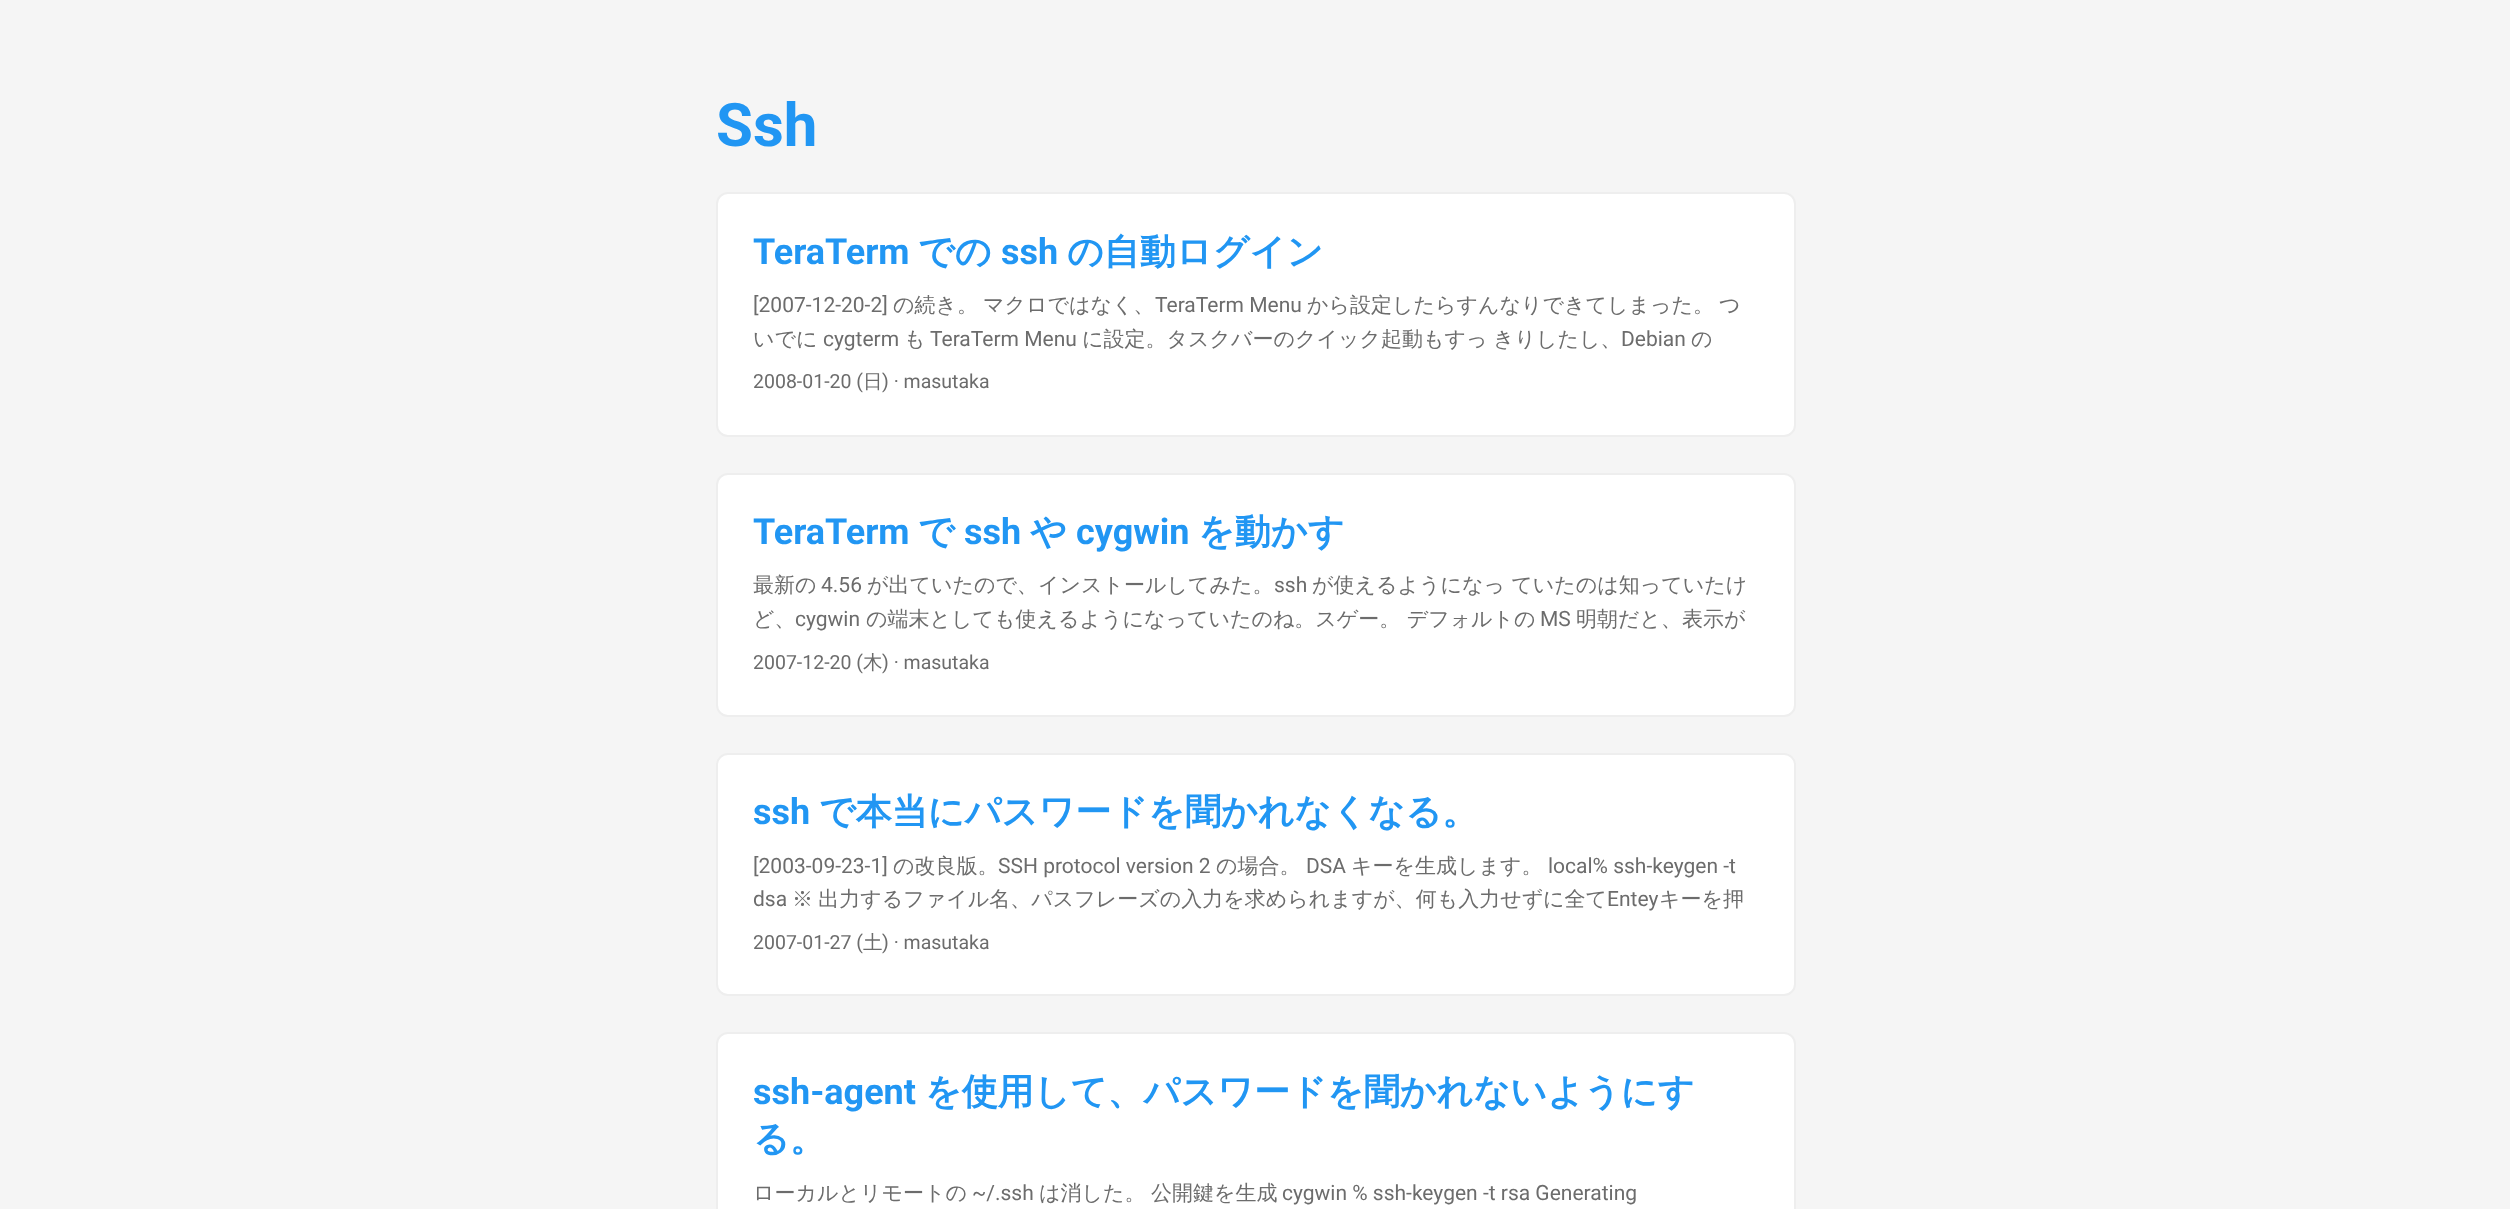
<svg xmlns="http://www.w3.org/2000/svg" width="2510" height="1209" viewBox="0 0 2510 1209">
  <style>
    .t1 { font: bold 60px Roboto; fill: #2196f3; }
    .t2 { font: bold 36px Roboto; fill: #2196f3; }
    .t3 { font: bold 36px WenQuanYi Zen Hei; fill: #2196f3; }
    .t4 { font: 21px Roboto; fill: #6c6c6c; }
    .t5 { font: 500 21px WenQuanYi Zen Hei; fill: #6c6c6c; }
    .t6 { font: 19.5px Roboto; fill: #6c6c6c; }
    .t7 { font: 500 19.5px WenQuanYi Zen Hei; fill: #6c6c6c; }
  </style>
  <rect width="100%" height="100%" fill="#f5f5f5"/>
  <text x="716" y="146" class="t1">Ssh</text>
  <rect x="717" y="193" width="1078" height="243" rx="11" fill="#fff" stroke="#eee" stroke-width="2"/>
  <text x="753" y="264" class="t2">TeraTerm</text>
  <text x="918" y="264" class="t3">での</text>
  <text x="1001" y="264" class="t2">ssh</text>
  <text x="1067" y="264" class="t3">の自動ログイン</text>
  <text x="753" y="312" class="t4">[2007-12-20-2]</text>
  <text x="893" y="312" class="t5">の続き。</text>
  <text x="983" y="312" class="t5">マクロではなく、</text>
  <text x="1155" y="312" class="t4">TeraTerm Menu</text>
  <text x="1307" y="312" class="t5">から設定したらすんなりできてしまった。</text>
  <text x="1719" y="312" class="t5">つ</text>
  <text x="753" y="346" class="t5">いでに</text>
  <text x="823" y="346" class="t4">cygterm</text>
  <text x="904" y="346" class="t5">も</text>
  <text x="930" y="346" class="t4">TeraTerm Menu</text>
  <text x="1082" y="346" class="t5">に設定。タスクバーのクイック起動もすっ</text>
  <text x="1493" y="346" class="t5">きりしたし、</text>
  <text x="1621" y="346" class="t4">Debian</text>
  <text x="1691" y="346" class="t5">の</text>
  <text x="753" y="388" class="t6">2008-01-20 (</text>
  <text x="863" y="388" class="t7">日</text>
  <text x="882" y="388" class="t6">) · masutaka</text>
  <rect x="717" y="474" width="1078" height="242" rx="11" fill="#fff" stroke="#eee" stroke-width="2"/>
  <text x="753" y="544" class="t2">TeraTerm</text>
  <text x="918" y="544" class="t3">で</text>
  <text x="964" y="544" class="t2">ssh</text>
  <text x="1030" y="544" class="t3">や</text>
  <text x="1076" y="544" class="t2">cygwin</text>
  <text x="1198" y="544" class="t3">を動かす</text>
  <text x="753" y="592" class="t5">最新の</text>
  <text x="821" y="592" class="t4">4.56</text>
  <text x="867" y="592" class="t5">が出ていたので、インストールしてみた。</text>
  <text x="1274" y="592" class="t4">ssh</text>
  <text x="1312" y="592" class="t5">が使えるようになっ ていたのは知っていたけ</text>
  <text x="753" y="626" class="t5">ど、</text>
  <text x="795" y="626" class="t4">cygwin</text>
  <text x="866" y="626" class="t5">の端末としても使えるようになっていたのね。スゲー。 デフォルトの</text>
  <text x="1540" y="626" class="t4">MS</text>
  <text x="1576" y="626" class="t5">明朝だと、表示が</text>
  <text x="753" y="669" class="t6">2007-12-20 (</text>
  <text x="863" y="669" class="t7">木</text>
  <text x="882" y="669" class="t6">) · masutaka</text>
  <rect x="717" y="754" width="1078" height="241" rx="11" fill="#fff" stroke="#eee" stroke-width="2"/>
  <text x="753" y="824" class="t2">ssh</text>
  <text x="819" y="824" class="t3">で本当にパスワードを聞かれなくなる。</text>
  <text x="753" y="873" class="t4">[2003-09-23-1]</text>
  <text x="893" y="873" class="t5">の改良版。</text>
  <text x="998" y="873" class="t4">SSH protocol version 2</text>
  <text x="1216" y="873" class="t5">の場合。</text>
  <text x="1306" y="873" class="t4">DSA</text>
  <text x="1351" y="873" class="t5">キーを生成します。</text>
  <text x="1548" y="873" class="t4">local% ssh-keygen -t</text>
  <text x="753" y="906" class="t4">dsa</text>
  <text x="792" y="906" word-spacing="-1" class="t5">※ 出力するファイル名、パスフレーズの入力を求められますが、何も入力せずに全て</text>
  <text x="1607" y="906" class="t4">Entey</text>
  <text x="1659" y="906" class="t5">キーを押</text>
  <text x="753" y="949" class="t6">2007-01-27 (</text>
  <text x="863" y="949" class="t7">土</text>
  <text x="882" y="949" class="t6">) · masutaka</text>
  <rect x="717" y="1033" width="1078" height="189" rx="11" fill="#fff" stroke="#eee" stroke-width="2"/>
  <text x="753" y="1104" class="t2">ssh-agent</text>
  <text x="925" y="1104" class="t3">を使用して、パスワードを聞かれないようにす</text>
  <text x="753" y="1151" class="t3">る。</text>
  <text x="753" y="1200" class="t5">ローカルとリモートの</text>
  <text x="972" y="1200" class="t4">~/.ssh</text>
  <text x="1039" y="1200" class="t5">は消した。</text>
  <text x="1151" y="1200" class="t5">公開鍵を生成</text>
  <text x="1282" y="1200" class="t4">cygwin % ssh-keygen -t rsa Generating</text>
</svg>
